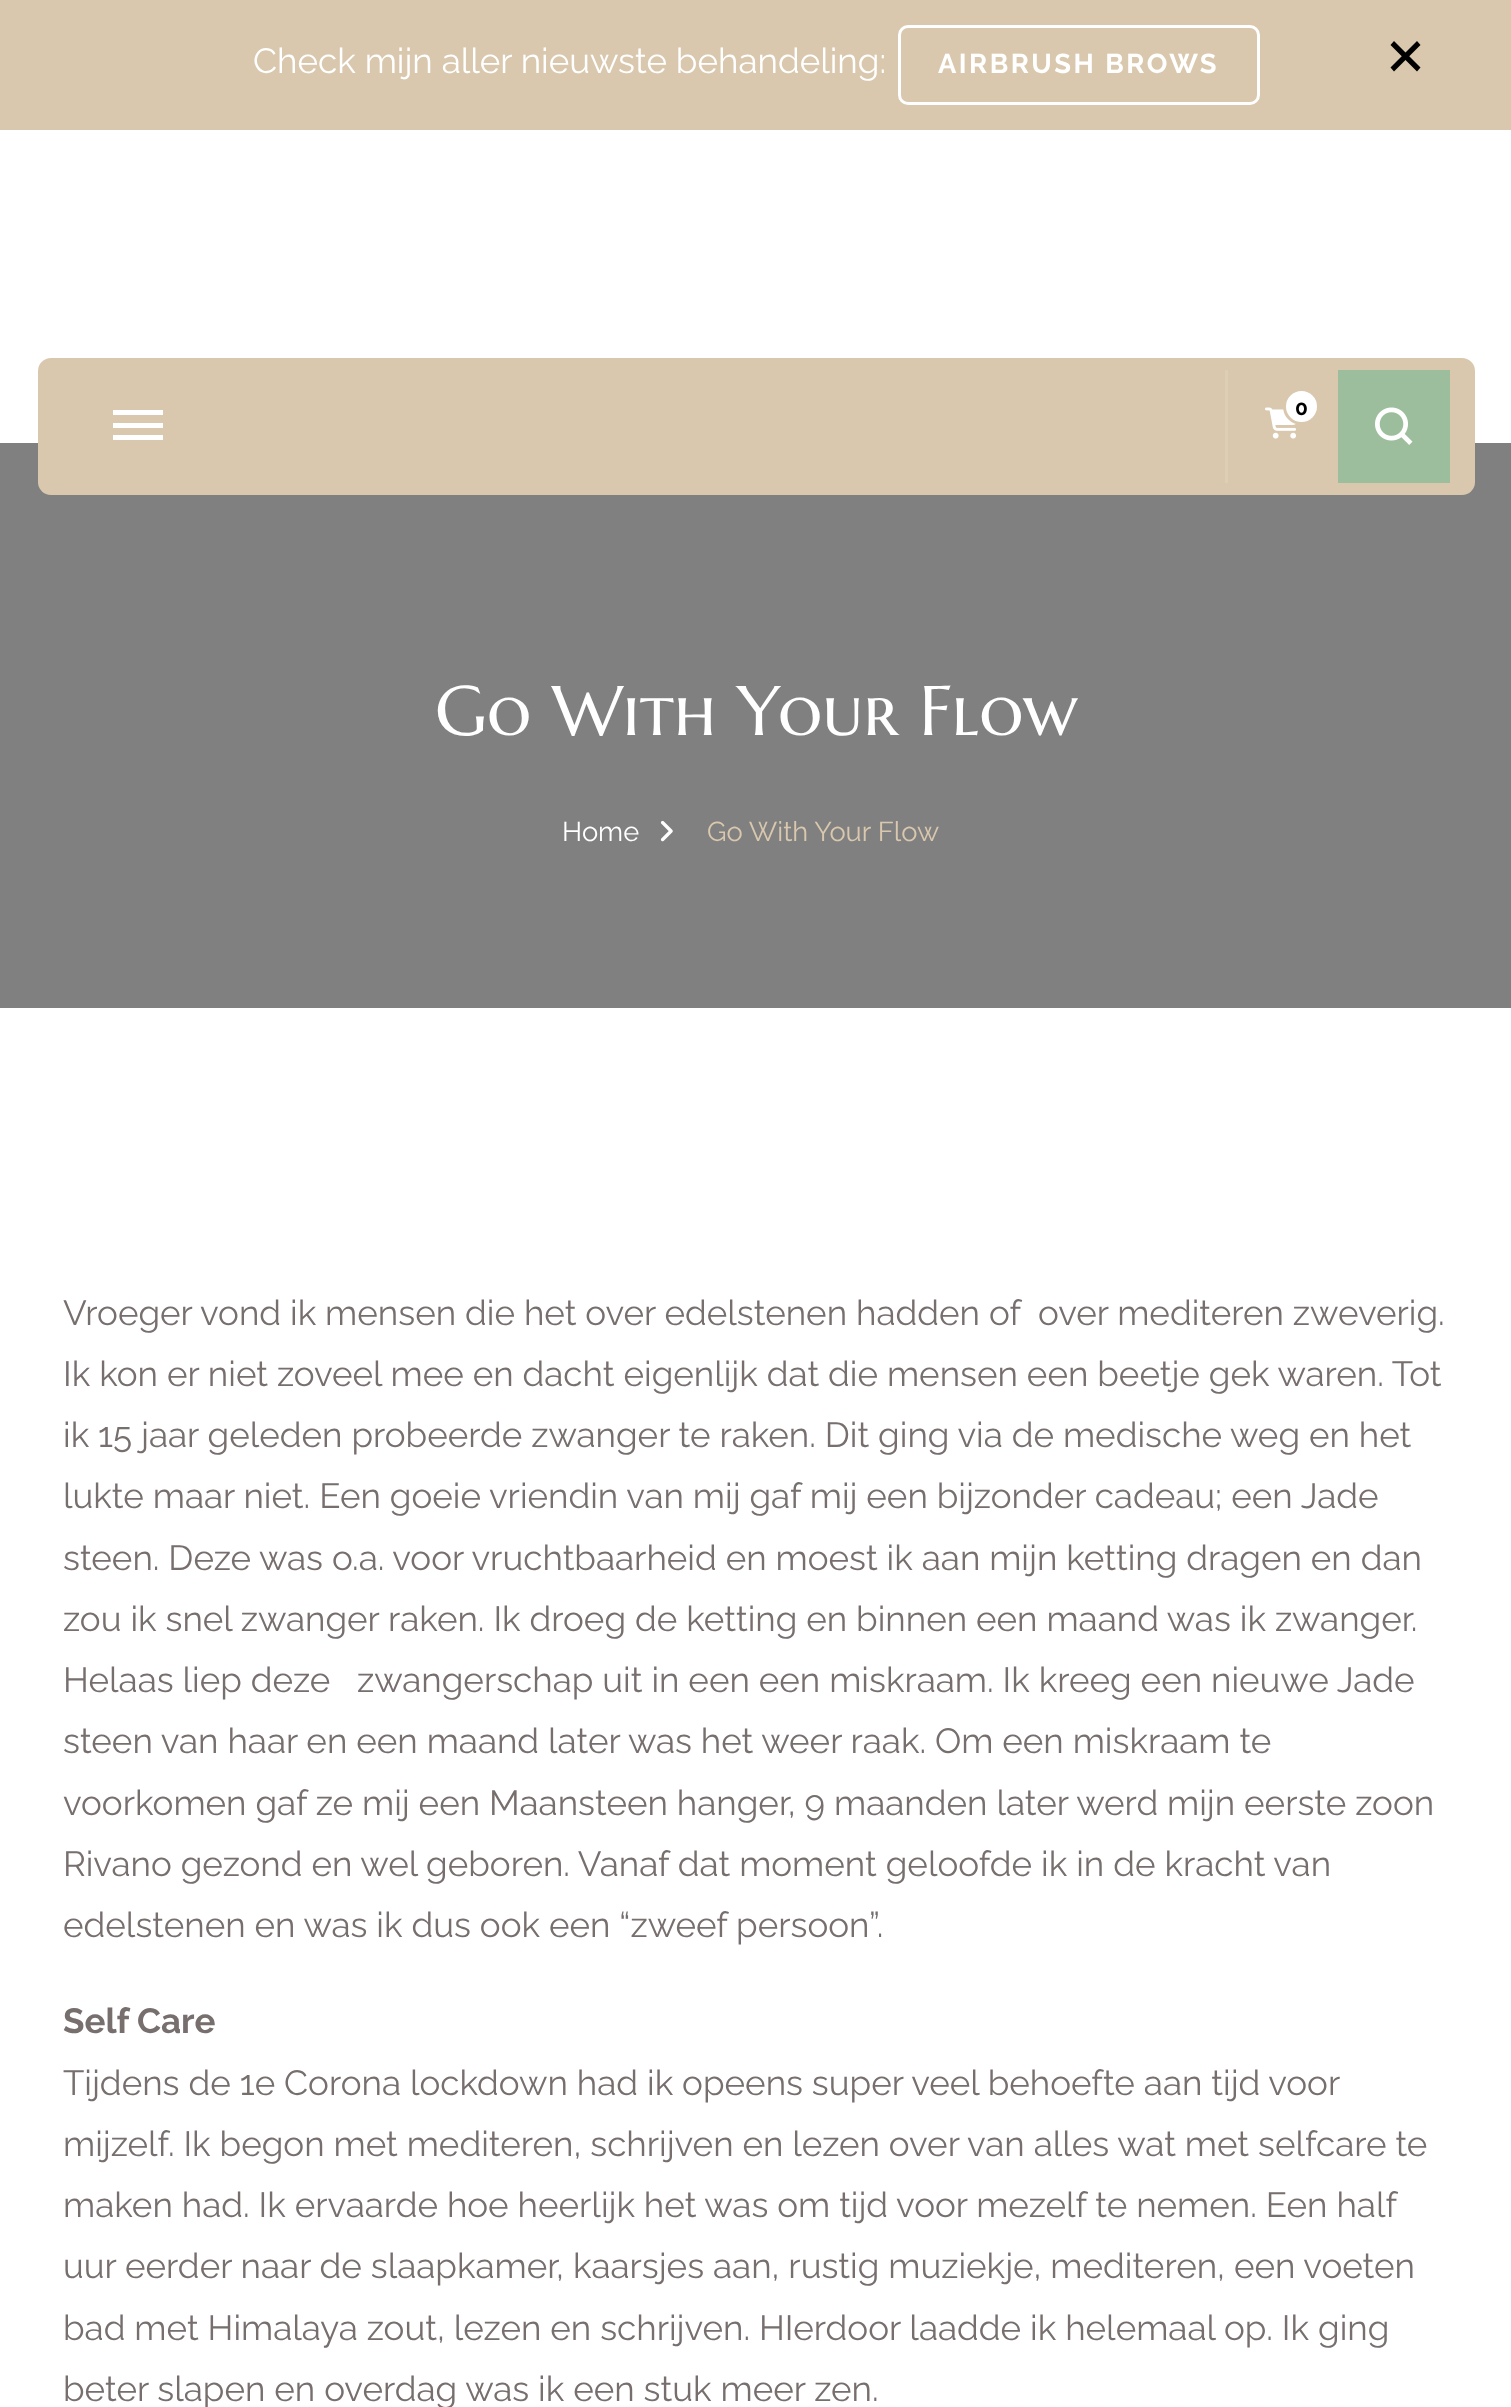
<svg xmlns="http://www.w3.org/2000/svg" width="1511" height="2407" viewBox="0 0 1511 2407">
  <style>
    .t1 { font: 35px Raleway; fill: #fff; }
    .t2 { font: bold 27.25px Raleway; letter-spacing: 2.5px; fill: #fff; }
    .t3 { font: bold 21px Raleway; fill: #000; }
    .t4 { font: 70px Marcellus SC; fill: #fff; }
    .t5 { font: 27.25px Raleway; fill: #fff; }
    .t6 { font: 27.25px Raleway; fill: #d9c8ae; }
    .t7 { font: 35px Raleway; fill: #776e6e; }
    .t8 { font: bold 35px Raleway; fill: #776e6e; }
  </style>
  <rect width="100%" height="100%" fill="#fff"/>
  <rect x="0" y="0" width="1511" height="130" fill="#d9c8ae"/>
  <text x="253" y="73" class="t1">Check mijn aller nieuwste behandeling:</text>
  <rect x="899.5" y="26.5" width="359" height="77" rx="8.5" fill="none" stroke="#fff" stroke-width="3"/>
  <text x="938" y="73" class="t2">AIRBRUSH BROWS</text>
  <path d="M1394 41L1420.5 67.5L1417 71.5L1390.5 45Z" fill="#000"/>
  <path d="M1390.5 67.5L1417 41L1420.5 45L1394 71.5Z" fill="#000"/>
  <rect x="0" y="443" width="1511" height="565" fill="#808080"/>
  <rect x="38" y="358" width="1437" height="137" rx="13" fill="#d9c8ae"/>
  <rect x="113" y="410" width="50" height="5" fill="#fff"/>
  <rect x="113" y="423" width="50" height="5" fill="#fff"/>
  <rect x="113" y="435" width="50" height="5" fill="#fff"/>
  <rect x="1225" y="370" width="3" height="113" fill="#ddceb6"/>
  <image x="1265" y="407" width="32" height="32" href="images/1.png"/>
  <circle cx="1301.5" cy="406.5" r="17" fill="#fff" stroke="#d9c8ae" stroke-width="3"/>
  <text x="1295" y="415" class="t3">0</text>
  <rect x="1338" y="370" width="112" height="113" fill="#9cbe9c"/>
  <image x="1375" y="407" width="38" height="38" href="images/2.png"/>
  <text x="435" y="735" class="t4">Go With Your Flow</text>
  <text x="562" y="841" class="t5">Home</text>
  <image x="660" y="820" width="13" height="22" href="images/3.png"/>
  <text x="707" y="841" class="t6">Go With Your Flow</text>
  <text x="63" y="1325" class="t7" xml:space="preserve">Vroeger vond ik mensen die het over edelstenen hadden of  over mediteren zweverig.</text>
  <text x="63" y="1386" class="t7">Ik kon er niet zoveel mee en dacht eigenlijk dat die mensen een beetje gek waren. Tot</text>
  <text x="63" y="1447" class="t7">ik 15 jaar geleden probeerde zwanger te raken. Dit ging via de medische weg en het</text>
  <text x="63" y="1508" class="t7">lukte maar niet. Een goeie vriendin van mij gaf mij een bijzonder cadeau; een Jade</text>
  <text x="63" y="1570" class="t7">steen. Deze was o.a. voor vruchtbaarheid en moest ik aan mijn ketting dragen en dan</text>
  <text x="63" y="1631" class="t7">zou ik snel zwanger raken. Ik droeg de ketting en binnen een maand was ik zwanger.</text>
  <text x="63" y="1692" class="t7" xml:space="preserve">Helaas liep deze   zwangerschap uit in een een miskraam. Ik kreeg een nieuwe Jade</text>
  <text x="63" y="1753" class="t7">steen van haar en een maand later was het weer raak. Om een miskraam te</text>
  <text x="63" y="1815" class="t7">voorkomen gaf ze mij een Maansteen hanger, 9 maanden later werd mijn eerste zoon</text>
  <text x="63" y="1876" class="t7">Rivano gezond en wel geboren. Vanaf dat moment geloofde ik in de kracht van</text>
  <text x="63" y="1937" class="t7">edelstenen en was ik dus ook een “zweef persoon”.</text>
  <text x="63" y="2033" class="t8">Self Care</text>
  <text x="63" y="2095" class="t7">Tijdens de 1e Corona lockdown had ik opeens super veel behoefte aan tijd voor</text>
  <text x="63" y="2156" class="t7">mijzelf. Ik begon met mediteren, schrijven en lezen over van alles wat met selfcare te</text>
  <text x="63" y="2217" class="t7">maken had. Ik ervaarde hoe heerlijk het was om tijd voor mezelf te nemen. Een half</text>
  <text x="63" y="2278" class="t7">uur eerder naar de slaapkamer, kaarsjes aan, rustig muziekje, mediteren, een voeten</text>
  <text x="63" y="2340" class="t7">bad met Himalaya zout, lezen en schrijven. HIerdoor laadde ik helemaal op. Ik ging</text>
  <text x="63" y="2401" class="t7">beter slapen en overdag was ik een stuk meer zen.</text>
</svg>
